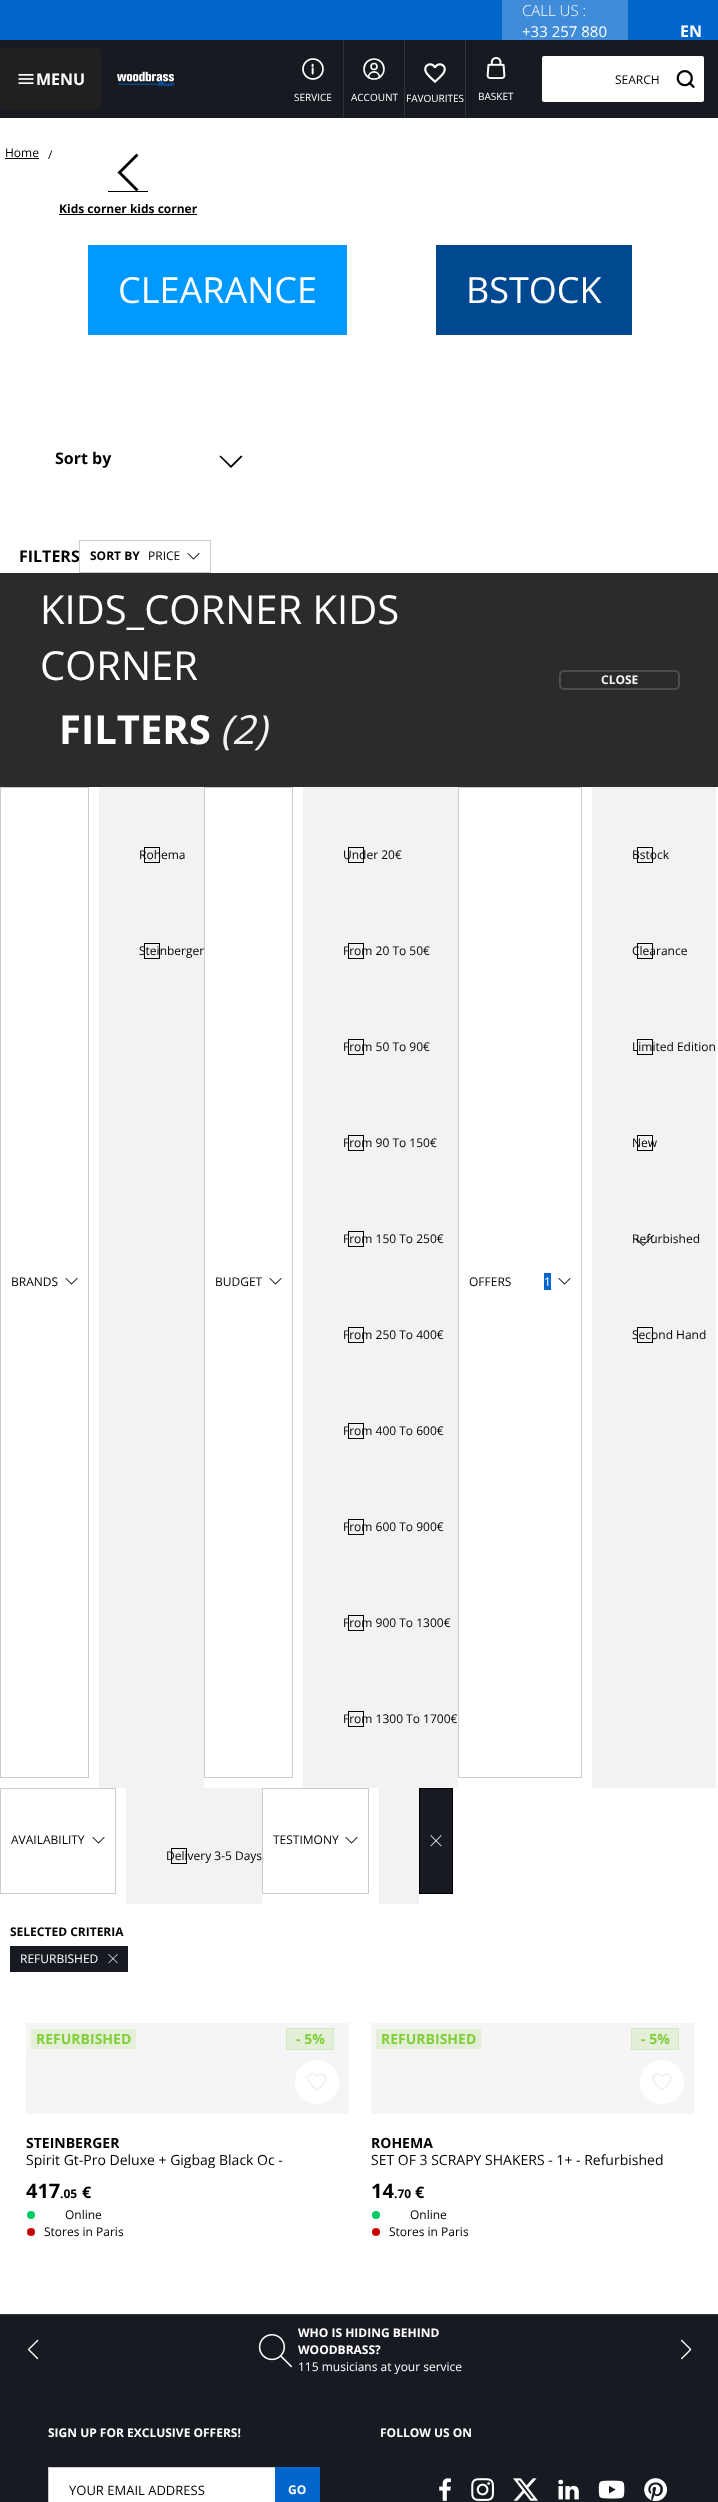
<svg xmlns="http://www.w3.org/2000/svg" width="718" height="2502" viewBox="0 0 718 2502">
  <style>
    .t1 { font: 300 15px Open Sans; fill: #fff; }
    .t2 { font: 15px Open Sans; fill: #fff; }
    .t3 { font: bold 16px Open Sans; fill: #fff; }
    .t4 { font: 12px Open Sans; fill: #000; }
    .t5 { font: 10px Open Sans; fill: #fff; }
    .t6 { font: bold 12px Open Sans; fill: #000; }
    .t7 { font: 36px Open Sans; fill: #fff; }
    .t8 { font: bold 16px Open Sans; fill: #000; }
    .t9 { font: 40px Open Sans; fill: #fff; }
    .t10 { font: bold 40px Open Sans; fill: #fff; }
    .t11 { font: italic 40px Open Sans; fill: #f2f2f2; }
    .t12 { font: bold 12px Open Sans; fill: #f2f2f2; }
    .t13 { font: 12px Open Sans; fill: #fff; }
    .t14 { font: bold 14px Open Sans; fill: #82ce38; }
    .t15 { font: bold 14px Open Sans; fill: #000; }
    .t16 { font: 14px Open Sans; fill: #000; }
    .t17 { font: bold 20px Open Sans; fill: #000; }
    .t18 { font: bold 12px Open Sans; fill: #fff; }
    .t19 { font: 13px Open Sans; fill: #000; }
  </style>
  <defs>
    <clipPath id="clip1"><rect x="26" y="2151" width="323" height="17"/></clipPath>
  </defs>
  <rect width="100%" height="100%" fill="#fff"/>
  <rect x="0" y="0" width="718" height="40" fill="#06c"/>
  <rect x="502" y="0" width="126" height="40" fill="#408cd9"/>
  <text x="522" y="16" class="t1">CALL US :</text>
  <text x="522" y="37" class="t2">+33 257 880</text>
  <text x="680" y="37" class="t3">EN</text>
  <rect x="0" y="40" width="718" height="78" fill="#181a22"/>
  <rect x="0" y="48" width="101" height="62" rx="4" fill="#202020"/>
  <image x="18" y="74" width="16" height="10" href="images/1.png"/>
  <text x="36" y="85" class="t3">MENU</text>
  <image x="117" y="71" width="58" height="16" href="images/2.png"/>
  <rect x="542" y="56" width="162" height="46" rx="2" fill="#fff"/>
  <text x="615" y="84" class="t4">SEARCH</text>
  <image x="676" y="70" width="19" height="18" href="images/3.png"/>
  <image x="302" y="58" width="22" height="22" href="images/4.png"/>
  <text x="294" y="101" class="t5">SERVICE</text>
  <rect x="343" y="40" width="1" height="78" fill="#333"/>
  <circle cx="374" cy="66.5" r="3" fill="none" stroke="#fff" stroke-width="1.6"/>
  <path d="M379.5 77.5C379.5 70 368.5 70 368.5 77.5" fill="none" stroke="#fff" stroke-width="1.6" stroke-linecap="round"/>
  <circle cx="374" cy="69" r="10" fill="none" stroke="#fff" stroke-width="1.6"/>
  <text x="351" y="101" class="t5">ACCOUNT</text>
  <rect x="404" y="40" width="1" height="78" fill="#333"/>
  <image x="424" y="63" width="22" height="20" href="images/5.png"/>
  <text x="406" y="102" class="t5">FAVOURITES</text>
  <rect x="465" y="40" width="1" height="78" fill="#333"/>
  <image x="486" y="57" width="20" height="22" href="images/6.png"/>
  <text x="478" y="100" class="t5">BASKET</text>
  <text x="5" y="157" class="t4">Home</text>
  <rect x="5" y="158" width="34" height="1" fill="#000"/>
  <text x="48" y="159" class="t4">/</text>
  <rect x="108" y="191" width="40" height="1" fill="#000"/>
  <path d="M136.5 191.5L138.5 189.5L121.5 172.5L138.5 155.5L136.5 153.5L117.5 172.5Z" fill="#000"/>
  <text x="59" y="213" class="t6">Kids corner kids corner</text>
  <rect x="59" y="214" width="138" height="1" fill="#000"/>
  <rect x="88" y="245" width="259" height="90" fill="#09f"/>
  <text x="118" y="303" class="t7">CLEARANCE</text>
  <rect x="436" y="245" width="196" height="90" fill="#004890"/>
  <text x="466" y="303" class="t7">BSTOCK</text>
  <text x="55" y="464" class="t8">Sort by</text>
  <path d="M242.5 456.5L241 455.5L231 465.5L220.5 455.5L219.5 456.5L231 468Z" fill="#000"/>
  <text x="19" y="562" class="t8">FILTERS</text>
  <rect x="79.5" y="540.5" width="131" height="32" fill="none" stroke="#ccc"/>
  <text x="90" y="560" class="t6">SORT BY</text>
  <text x="148" y="560" class="t4">PRICE</text>
  <image x="187" y="553" width="13" height="7" href="images/7.png"/>
  <rect x="0" y="573" width="718" height="214" fill="#2b2b2b"/>
  <text x="40" y="624" class="t9">KIDS_CORNER KIDS</text>
  <text x="40" y="680" class="t9">CORNER</text>
  <text x="59" y="744" class="t10">FILTERS</text>
  <text x="220" y="744" class="t11">(2)</text>
  <rect x="560" y="671" width="119" height="18" rx="4" fill="none" stroke="#4d4d4d" stroke-width="2"/>
  <text x="601" y="684" class="t12">CLOSE</text>
  <rect x="0.5" y="787.5" width="88" height="990" fill="none" stroke="#ccc"/>
  <text x="11" y="1286" class="t4">BRANDS</text>
  <image x="65" y="1278" width="13" height="7" href="images/7.png"/>
  <rect x="99" y="787" width="105" height="1001" fill="#f2f2f2"/>
  <rect x="144.5" y="847.5" width="15" height="15" fill="none" stroke="#000"/>
  <text x="139" y="859" class="t4">Rohema</text>
  <rect x="144.5" y="943.5" width="15" height="15" fill="none" stroke="#000"/>
  <text x="139" y="955" class="t4">Steinberger</text>
  <rect x="204.5" y="787.5" width="88" height="990" fill="none" stroke="#ccc"/>
  <text x="215" y="1286" class="t4">BUDGET</text>
  <image x="269" y="1278" width="13" height="7" href="images/7.png"/>
  <rect x="303" y="787" width="155" height="1001" fill="#f2f2f2"/>
  <rect x="348.5" y="847.5" width="15" height="15" fill="none" stroke="#000"/>
  <text x="343" y="859" class="t4">Under 20€</text>
  <rect x="348.5" y="943.5" width="15" height="15" fill="none" stroke="#000"/>
  <text x="343" y="955" class="t4">From 20 To 50€</text>
  <rect x="348.5" y="1039.5" width="15" height="15" fill="none" stroke="#000"/>
  <text x="343" y="1051" class="t4">From 50 To 90€</text>
  <rect x="348.5" y="1135.5" width="15" height="15" fill="none" stroke="#000"/>
  <text x="343" y="1147" class="t4">From 90 To 150€</text>
  <rect x="348.5" y="1231.5" width="15" height="15" fill="none" stroke="#000"/>
  <text x="343" y="1243" class="t4">From 150 To 250€</text>
  <rect x="348.5" y="1327.5" width="15" height="15" fill="none" stroke="#000"/>
  <text x="343" y="1339" class="t4">From 250 To 400€</text>
  <rect x="348.5" y="1423.5" width="15" height="15" fill="none" stroke="#000"/>
  <text x="343" y="1435" class="t4">From 400 To 600€</text>
  <rect x="348.5" y="1519.5" width="15" height="15" fill="none" stroke="#000"/>
  <text x="343" y="1531" class="t4">From 600 To 900€</text>
  <rect x="348.5" y="1615.5" width="15" height="15" fill="none" stroke="#000"/>
  <text x="343" y="1627" class="t4">From 900 To 1300€</text>
  <rect x="348.5" y="1711.5" width="15" height="15" fill="none" stroke="#000"/>
  <text x="343" y="1723" class="t4">From 1300 To 1700€</text>
  <rect x="458.5" y="787.5" width="123" height="990" fill="none" stroke="#ccc"/>
  <text x="469" y="1286" class="t4">OFFERS</text>
  <rect x="544" y="1273" width="7" height="17" fill="#06c"/>
  <text x="544" y="1286" class="t13">1</text>
  <image x="558" y="1278" width="13" height="7" href="images/7.png"/>
  <rect x="592" y="787" width="124" height="1001" fill="#f2f2f2"/>
  <rect x="637.5" y="847.5" width="15" height="15" fill="none" stroke="#000"/>
  <text x="632" y="859" class="t4">Bstock</text>
  <rect x="637.5" y="943.5" width="15" height="15" fill="none" stroke="#000"/>
  <text x="632" y="955" class="t4">Clearance</text>
  <rect x="637.5" y="1039.5" width="15" height="15" fill="none" stroke="#000"/>
  <text x="632" y="1051" class="t4">Limited Edition</text>
  <rect x="637.5" y="1135.5" width="15" height="15" fill="none" stroke="#000"/>
  <text x="632" y="1147" class="t4">New</text>
  <text x="632" y="1243" class="t4">Refurbished</text>
  <path d="M654.5 1235L643 1246V1245L653 1235ZM643 1246L636 1239H637.5L643 1245Z" fill="#000"/>
  <rect x="637.5" y="1327.5" width="15" height="15" fill="none" stroke="#000"/>
  <text x="632" y="1339" class="t4">Second Hand</text>
  <rect x="0.5" y="1788.5" width="115" height="105" fill="none" stroke="#ccc"/>
  <text x="11" y="1844" class="t4">AVAILABILITY</text>
  <image x="92" y="1837" width="13" height="7" href="images/7.png"/>
  <rect x="262.5" y="1788.5" width="106" height="105" fill="none" stroke="#ccc"/>
  <text x="273" y="1844" class="t4">TESTIMONY</text>
  <image x="345" y="1837" width="13" height="7" href="images/7.png"/>
  <rect x="379" y="1788" width="40" height="116" fill="#f2f2f2"/>
  <rect x="419.5" y="1788.5" width="33" height="105" fill="#181a22" stroke="#000"/>
  <image x="430" y="1835" width="12" height="12" href="images/8.png"/>
  <rect x="126" y="1788" width="136" height="116" fill="#f2f2f2"/>
  <rect x="171.5" y="1848.5" width="15" height="15" fill="none" stroke="#000"/>
  <text x="166" y="1860" class="t4">Delivery 3-5 Days</text>
  <text x="10" y="1936" class="t6">SELECTED CRITERIA</text>
  <rect x="10" y="1946" width="118" height="26" fill="#181a22"/>
  <text x="20" y="1963" class="t13">REFURBISHED</text>
  <image x="108" y="1954" width="10" height="10" href="images/9.png"/>
  <rect x="26" y="2023" width="323" height="91" fill="#f5f5f5"/>
  <rect x="31" y="2029" width="105" height="20" fill="#e4efd9"/>
  <text x="36" y="2044" class="t14">REFURBISHED</text>
  <rect x="286.5" y="2028.5" width="47" height="21" fill="#e4efd9" stroke="#d5eac1"/>
  <text x="296" y="2044" class="t14">- 5%</text>
  <circle cx="317" cy="2082" r="22" fill="#fff"/>
  <image x="307" y="2073" width="20" height="18" href="images/10.png"/>
  <text x="26" y="2148" class="t15">STEINBERGER</text>
  <g clip-path="url(#clip1)">
    <text x="26" y="2165" class="t16">Spirit Gt-Pro Deluxe + Gigbag Black Oc -</text>
  </g>
  <text x="26" y="2198" class="t17">417</text>
  <text x="60" y="2198" class="t6">.05</text>
  <text x="82" y="2198" class="t8">€</text>
  <circle cx="31" cy="2215" r="4" fill="#0c6"/>
  <text x="65" y="2219" class="t4">Online</text>
  <circle cx="31" cy="2232" r="4" fill="#c00"/>
  <text x="44" y="2236" class="t4">Stores in Paris</text>
  <rect x="371" y="2023" width="323" height="91" fill="#f5f5f5"/>
  <rect x="376" y="2029" width="105" height="20" fill="#e4efd9"/>
  <text x="381" y="2044" class="t14">REFURBISHED</text>
  <rect x="631.5" y="2028.5" width="47" height="21" fill="#e4efd9" stroke="#d5eac1"/>
  <text x="641" y="2044" class="t14">- 5%</text>
  <circle cx="662" cy="2082" r="22" fill="#fff"/>
  <image x="652" y="2073" width="20" height="18" href="images/10.png"/>
  <text x="371" y="2148" class="t15">ROHEMA</text>
  <text x="371" y="2165" class="t16">SET OF 3 SCRAPY SHAKERS - 1+ - Refurbished</text>
  <text x="371" y="2198" class="t17">14</text>
  <text x="394" y="2198" class="t6">.70</text>
  <text x="415" y="2198" class="t8">€</text>
  <circle cx="376" cy="2215" r="4" fill="#0c6"/>
  <text x="410" y="2219" class="t4">Online</text>
  <circle cx="376" cy="2232" r="4" fill="#c00"/>
  <text x="389" y="2236" class="t4">Stores in Paris</text>
  <rect x="0" y="2315" width="718" height="187" fill="#181a22"/>
  <rect x="0" y="2314" width="718" height="1" fill="#333"/>
  <image x="28" y="2339" width="11" height="21" href="images/11.png"/>
  <image x="258" y="2334" width="35" height="34" href="images/12.png"/>
  <text x="298" y="2337" class="t18">WHO IS HIDING BEHIND</text>
  <text x="298" y="2354" class="t18">WOODBRASS?</text>
  <text x="298" y="2371" class="t13">115 musicians at your service</text>
  <image x="681" y="2339" width="11" height="21" href="images/13.png"/>
  <text x="48" y="2437" class="t18">SIGN UP FOR EXCLUSIVE OFFERS!</text>
  <rect x="49" y="2468" width="226" height="34" fill="#fff"/>
  <rect x="48.5" y="2467.5" width="271" height="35" fill="none" stroke="#ccc"/>
  <text x="69" y="2495" class="t19">YOUR EMAIL ADDRESS</text>
  <rect x="275" y="2467" width="45" height="35" fill="#06c"/>
  <text x="288" y="2494" class="t18">GO</text>
  <text x="380" y="2437" class="t18">FOLLOW US ON</text>
  <image x="439" y="2478" width="12" height="23" href="images/14.png"/>
  <image x="471" y="2478" width="23" height="23" href="images/15.png"/>
  <image x="513" y="2478" width="25" height="23" href="images/16.png"/>
  <image x="558" y="2479" width="21" height="21" href="images/17.png"/>
  <image x="598" y="2480" width="27" height="19" href="images/18.png"/>
  <image x="644" y="2478" width="24" height="24" href="images/19.png"/>
</svg>
